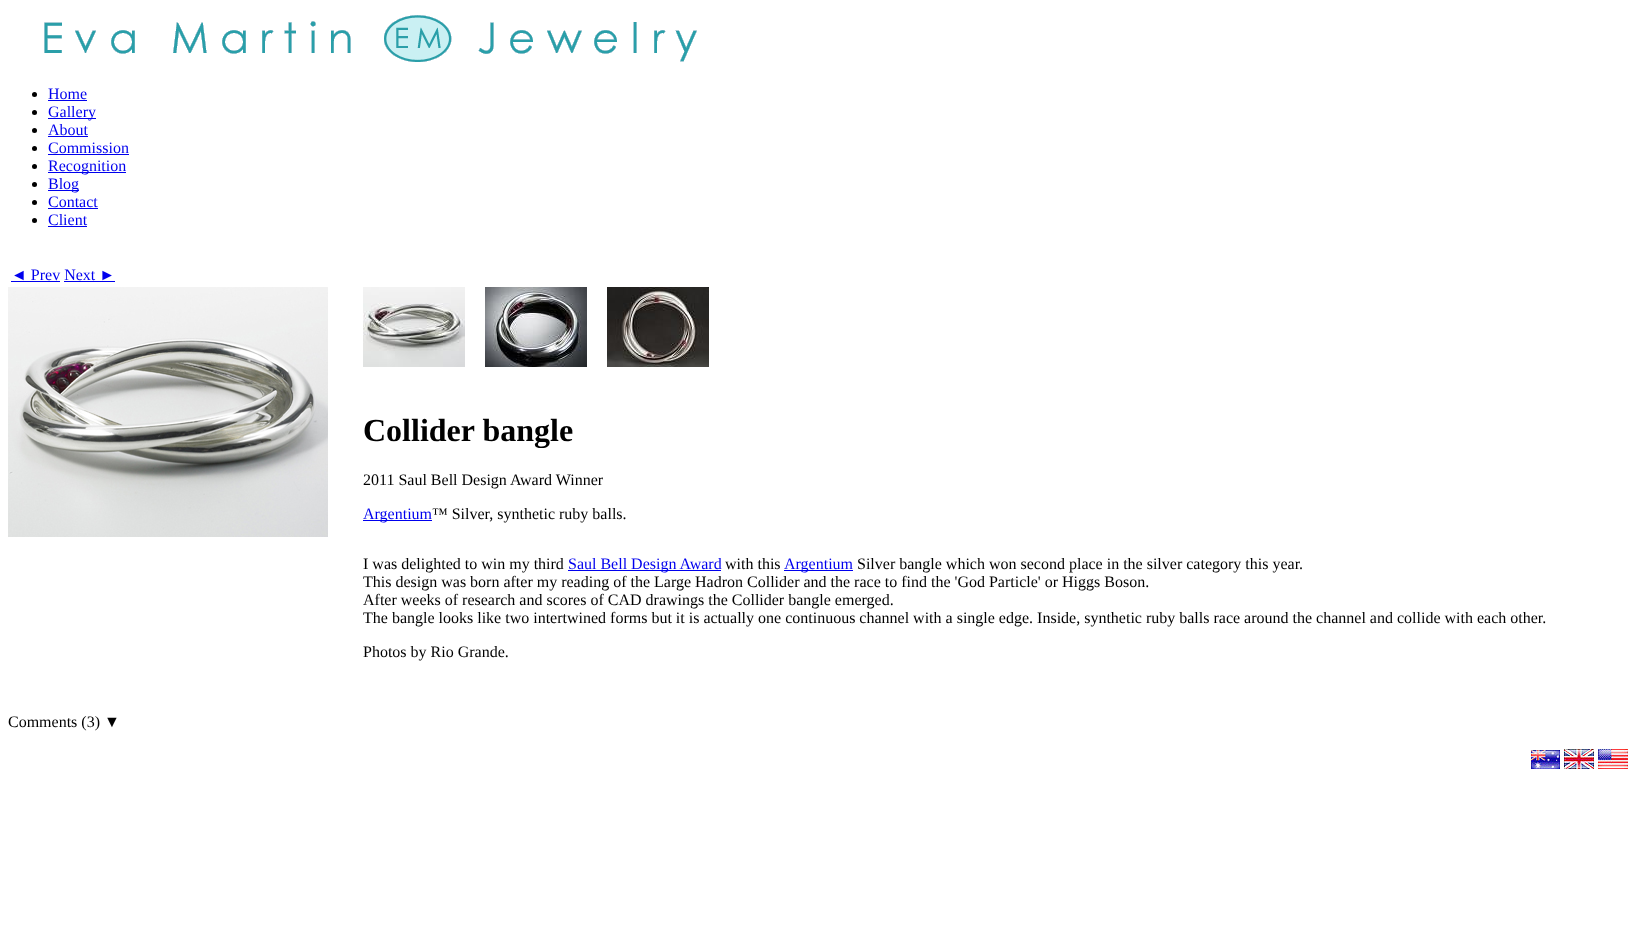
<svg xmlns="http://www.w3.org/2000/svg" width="1636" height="942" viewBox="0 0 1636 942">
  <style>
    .t1 { font: 16px Liberation Serif; fill: #00e; }
    .t2 { font: bold 32px Liberation Serif; fill: #000; }
    .t3 { font: 16px Liberation Serif; fill: #000; }
  </style>
  <rect width="100%" height="100%" fill="#fff"/>
  <image x="44" y="15" width="653" height="47" href="images/1.png"/>
  <circle cx="34.5" cy="94.5" r="2.5" fill="#000"/>
  <text x="48" y="99" class="t1">Home</text>
  <rect x="48" y="100" width="39" height="1" fill="#00e"/>
  <circle cx="34.5" cy="112.5" r="2.5" fill="#000"/>
  <rect x="48" y="118" width="48" height="1" fill="#00e"/>
  <text x="48" y="117" class="t1">Gallery</text>
  <circle cx="34.5" cy="130.5" r="2.5" fill="#000"/>
  <text x="48" y="135" class="t1">About</text>
  <rect x="48" y="136" width="40" height="1" fill="#00e"/>
  <circle cx="34.5" cy="148.5" r="2.5" fill="#000"/>
  <text x="48" y="153" class="t1">Commission</text>
  <rect x="48" y="154" width="81" height="1" fill="#00e"/>
  <circle cx="34.5" cy="166.5" r="2.5" fill="#000"/>
  <rect x="48" y="172" width="78" height="1" fill="#00e"/>
  <text x="48" y="171" class="t1">Recognition</text>
  <circle cx="34.5" cy="184.5" r="2.5" fill="#000"/>
  <rect x="48" y="190" width="31" height="1" fill="#00e"/>
  <text x="48" y="189" class="t1">Blog</text>
  <circle cx="34.5" cy="202.5" r="2.5" fill="#000"/>
  <text x="48" y="207" class="t1">Contact</text>
  <rect x="48" y="208" width="50" height="1" fill="#00e"/>
  <circle cx="34.5" cy="220.5" r="2.5" fill="#000"/>
  <text x="48" y="225" class="t1">Client</text>
  <rect x="48" y="226" width="39" height="1" fill="#00e"/>
  <text x="11" y="280" class="t1">◄ Prev Next ►</text>
  <rect x="11" y="281" width="49" height="1" fill="#00e"/>
  <rect x="64" y="281" width="51" height="1" fill="#00e"/>
  <image x="8" y="287" width="320" height="250" href="images/2.png"/>
  <image x="363" y="287" width="102" height="80" href="images/3.png"/>
  <image x="485" y="287" width="102" height="80" href="images/4.png"/>
  <image x="607" y="287" width="102" height="80" href="images/5.png"/>
  <text x="363" y="441" class="t2">Collider bangle</text>
  <text x="363" y="485" class="t3">2011 Saul Bell Design Award Winner</text>
  <rect x="363" y="520" width="69" height="1" fill="#00e"/>
  <text x="363" y="519" class="t1">Argentium</text>
  <text x="432" y="519" class="t3">™ Silver, synthetic ruby balls.</text>
  <text x="363" y="569" class="t3">I was delighted to win my third</text>
  <rect x="568" y="570" width="153" height="1" fill="#00e"/>
  <text x="568" y="569" class="t1">Saul Bell Design Award</text>
  <text x="725" y="569" class="t3">with this</text>
  <rect x="784" y="570" width="69" height="1" fill="#00e"/>
  <text x="784" y="569" class="t1">Argentium</text>
  <text x="857" y="569" class="t3">Silver bangle which won second place in the silver category this year.</text>
  <text x="363" y="587" class="t3">This design was born after my reading of the Large Hadron Collider and the race to find the 'God Particle' or Higgs Boson.</text>
  <text x="363" y="605" class="t3">After weeks of research and scores of CAD drawings the Collider bangle emerged.</text>
  <text x="363" y="623" class="t3">The bangle looks like two intertwined forms but it is actually one continuous channel with a single edge. Inside, synthetic ruby balls race around the channel and collide with each other.</text>
  <text x="363" y="657" class="t3">Photos by Rio Grande.</text>
  <text x="8" y="727" class="t3">Comments (3) ▼</text>
  <image x="1531" y="750" width="29" height="19" href="images/6.png"/>
  <image x="1564" y="749" width="30" height="20" href="images/7.png"/>
  <image x="1598" y="749" width="30" height="20" href="images/8.png"/>
</svg>
